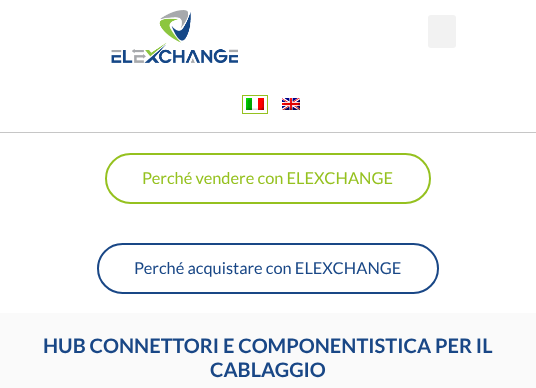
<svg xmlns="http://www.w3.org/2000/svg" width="536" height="388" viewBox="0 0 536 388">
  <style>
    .t1 { font: 16.4px Lato; fill: #95c11f; }
    .t2 { font: 16.4px Lato; fill: #194786; }
    .t3 { font: bold 20px Lato; fill: #194786; }
  </style>
  <rect width="100%" height="100%" fill="#fff"/>
  <image x="111" y="10" width="127" height="53" href="images/1.png"/>
  <rect x="428" y="15" width="28" height="33" rx="3" fill="#f2f2f2"/>
  <rect x="242.5" y="95.5" width="25" height="18" fill="none" stroke="#95c11f"/>
  <image x="246" y="98" width="18" height="12" href="images/2.png"/>
  <image x="282" y="98" width="18" height="12" href="images/3.png"/>
  <rect x="0" y="132" width="536" height="1" fill="#c6c6c6"/>
  <rect x="106" y="154" width="324" height="49" rx="24.5" fill="none" stroke="#95c11f" stroke-width="2"/>
  <text x="142" y="184" class="t1">Perché vendere con ELEXCHANGE</text>
  <rect x="98" y="244" width="340" height="49" rx="24.5" fill="none" stroke="#194786" stroke-width="2"/>
  <text x="134" y="274" class="t2">Perché acquistare con ELEXCHANGE</text>
  <rect x="0" y="313" width="536" height="75" fill="#fafafa"/>
  <text x="43" y="353" class="t3">HUB CONNETTORI E COMPONENTISTICA PER IL</text>
  <text x="210" y="377" class="t3">CABLAGGIO</text>
</svg>
